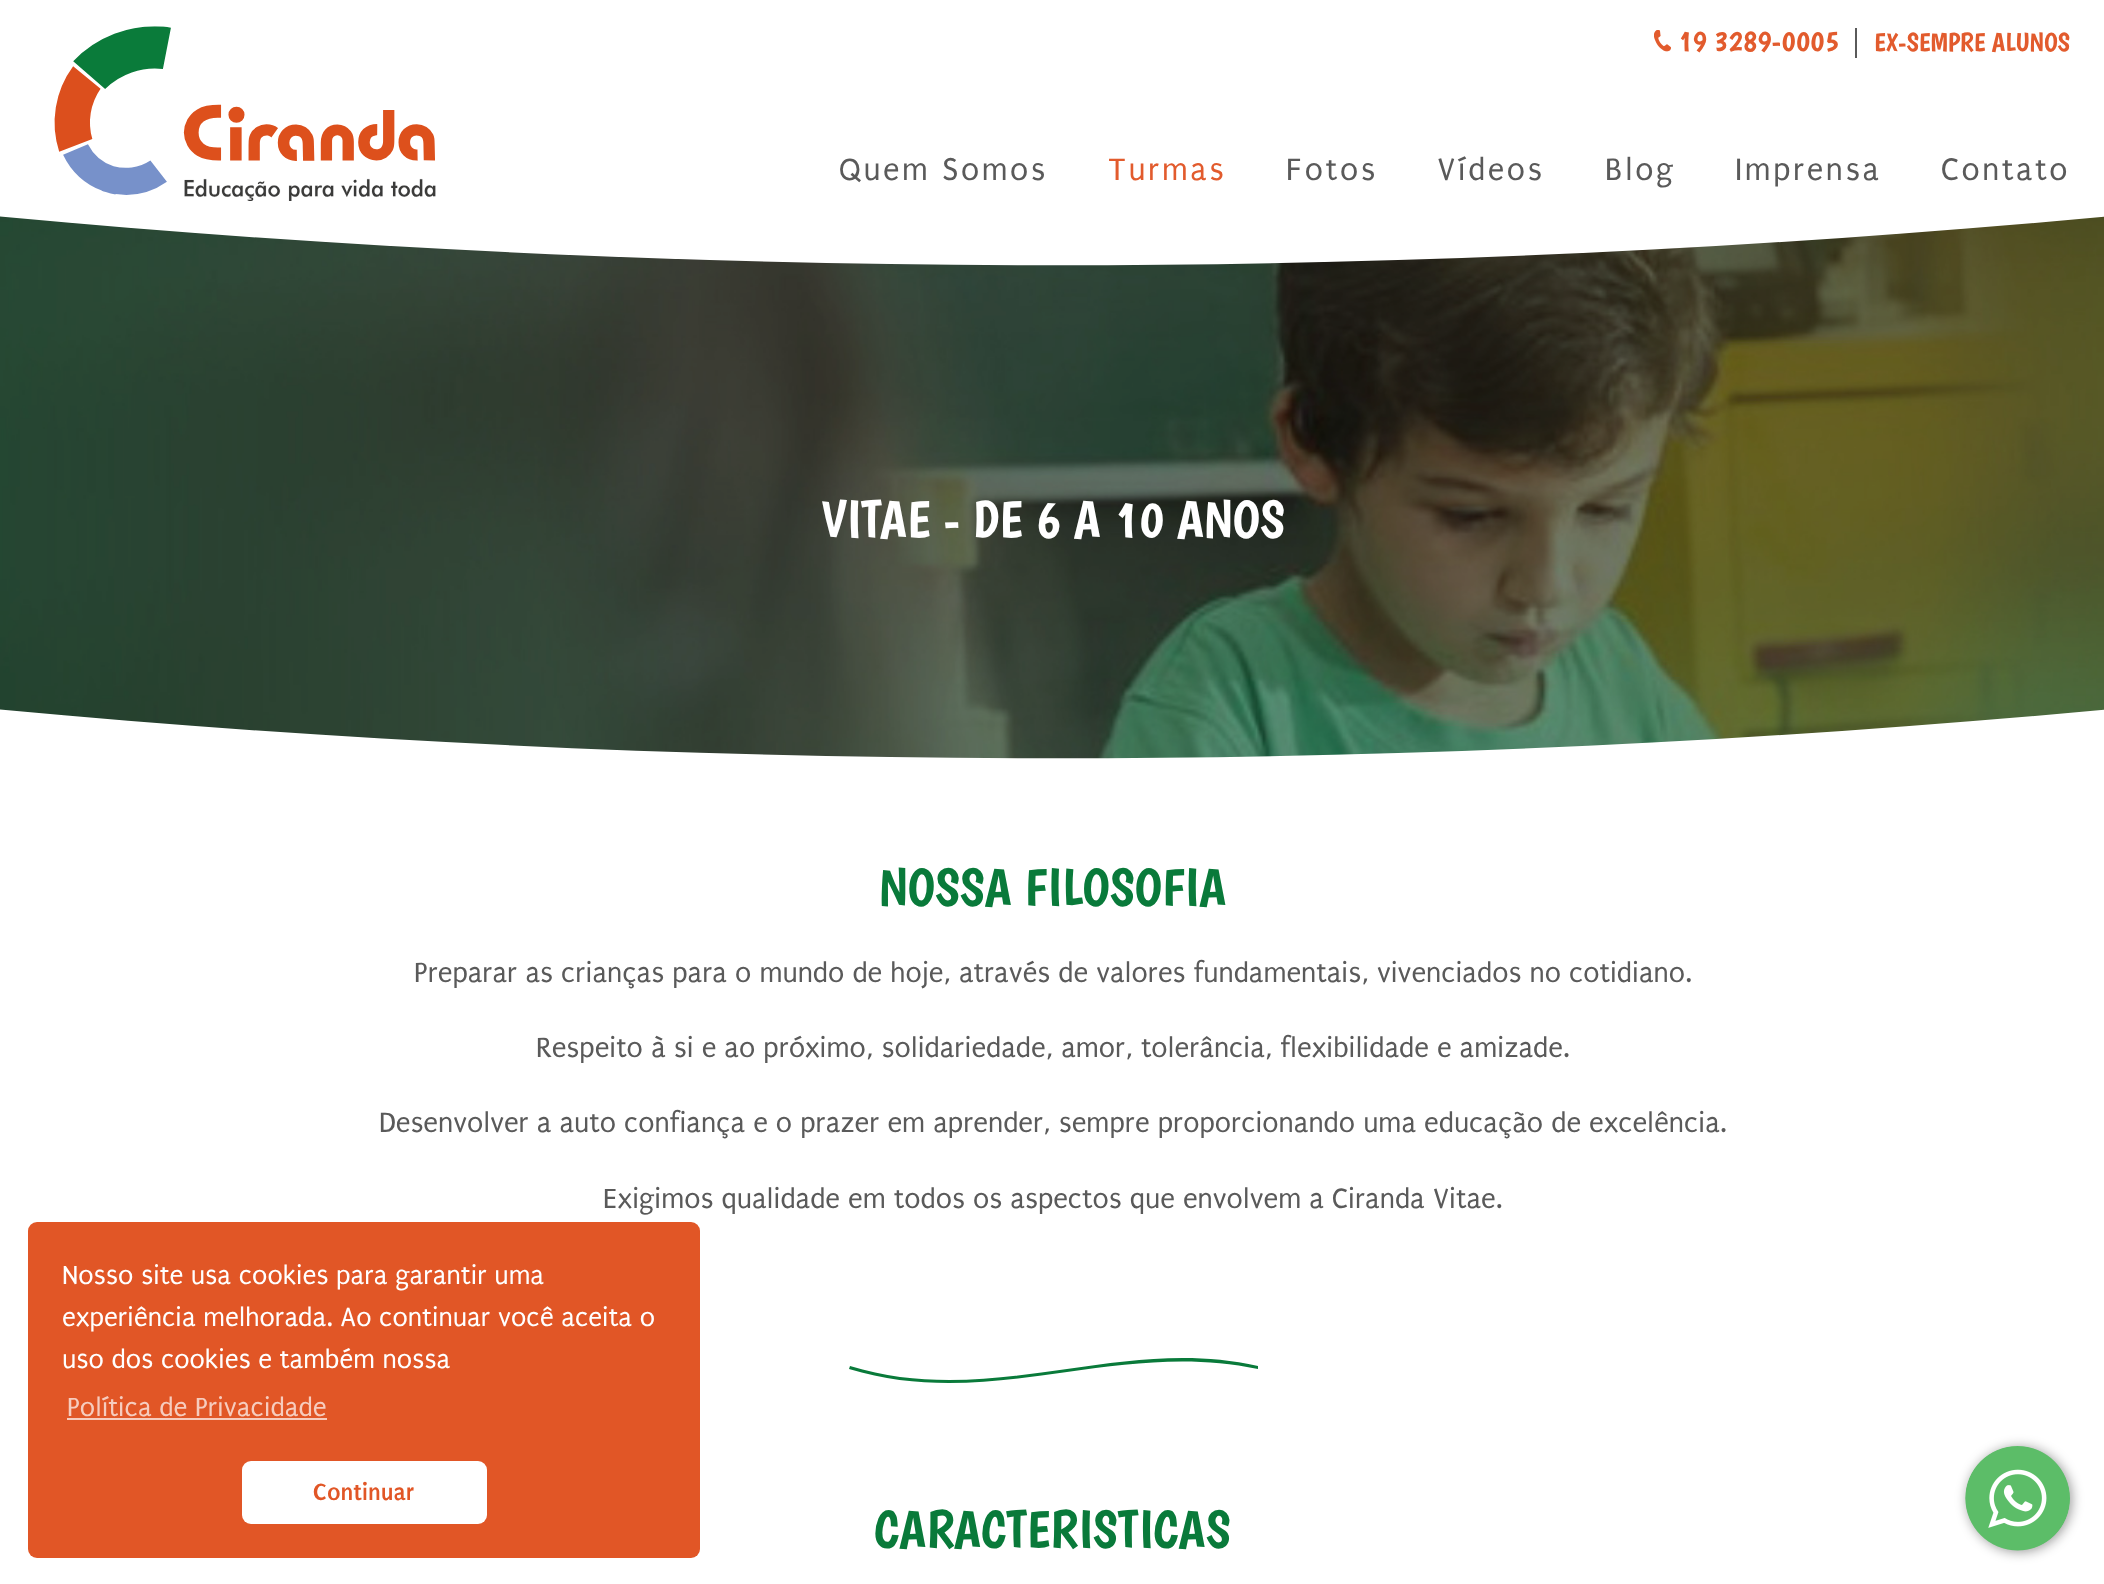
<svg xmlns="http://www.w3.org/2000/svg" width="2104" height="1584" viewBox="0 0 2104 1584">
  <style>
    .t1 { font: 29.75px Boogaloo; fill: #e25b2d; }
    .t2 { font: 26.25px Boogaloo; fill: #e25b2d; }
    .t3 { font: 33.25px Puritan; letter-spacing: 2.6px; fill: #5a5a5a; }
    .t4 { font: 33.25px Puritan; letter-spacing: 2.6px; fill: #e25b2d; }
    .t5 { font: 52.5px Boogaloo; fill: #fff; }
    .t6 { font: 28px Puritan; fill: #fff; }
    .t7 { font: 28px Puritan; fill: #f6ccbe; }
    .t8 { font: bold 25px Puritan; fill: #e15626; }
    .t9 { font: 52.5px Boogaloo; fill: #097a3a; }
    .t10 { font: 29.75px Puritan; fill: #5a5a5a; }
  </style>
  <rect width="100%" height="100%" fill="#fff"/>
  <image x="54" y="26" width="382" height="175" href="images/1.png"/>
  <image x="1654" y="30" width="17" height="22" href="images/2.png"/>
  <text x="1678" y="51" class="t1">19 3289-0005</text>
  <rect x="1855" y="28" width="2" height="30" fill="#5a5a5a"/>
  <text x="1874" y="51" class="t2">EX-SEMPRE ALUNOS</text>
  <text x="839" y="180" class="t3">Quem Somos</text>
  <text x="1108" y="180" class="t4">Turmas</text>
  <text x="1286" y="180" class="t3">Fotos</text>
  <text x="1437" y="180" class="t3">Vídeos</text>
  <text x="1605" y="180" class="t3">Blog</text>
  <text x="1735" y="180" class="t3">Imprensa</text>
  <text x="1941" y="180" class="t3">Contato</text>
  <image x="0" y="216" width="2104" height="543" href="images/3.png"/>
  <path d="M-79 209V207H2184V209C1432 284 673 284-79 209Z" fill="#fff" fill-rule="evenodd"/>
  <text x="821" y="537" class="t5">VITAE - DE 6 A 10 ANOS</text>
  <path d="M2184 702V760H-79V702C673 777 1432 777 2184 702Z" fill="#fff" fill-rule="evenodd"/>
  <rect x="28" y="1222" width="672" height="336" rx="9" fill="#e15626"/>
  <text x="62" y="1284" class="t6">Nosso site usa cookies para garantir uma</text>
  <text x="62" y="1326" class="t6">experiência melhorada. Ao continuar você aceita o</text>
  <text x="62" y="1368" class="t6">uso dos cookies e também nossa</text>
  <text x="67" y="1416" class="t7">Política de Privacidade</text>
  <rect x="67" y="1418" width="260" height="2" fill="#f6ccbe"/>
  <rect x="242" y="1461" width="245" height="63" rx="9" fill="#fff"/>
  <text x="313" y="1500" class="t8">Continuar</text>
  <text x="879" y="905" class="t9">NOSSA FILOSOFIA</text>
  <text x="414" y="982" class="t10">Preparar as crianças para o mundo de hoje, através de valores fundamentais, vivenciados no cotidiano.</text>
  <text x="536" y="1057" class="t10">Respeito à si e ao próximo, solidariedade, amor, tolerância, flexibilidade e amizade.</text>
  <text x="379" y="1132" class="t10">Desenvolver a auto confiança e o prazer em aprender, sempre proporcionando uma educação de excelência.</text>
  <text x="603" y="1208" class="t10">Exigimos qualidade em todos os aspectos que envolvem a Ciranda Vitae.</text>
  <path d="M850 1366C925 1389 996 1379 1067 1369C1130 1360 1192 1351 1258 1366V1369C1192 1355 1130 1363 1067 1372C996 1382 925 1392 849 1369Z" fill="#097a3a"/>
  <text x="874" y="1547" class="t9">CARACTERISTICAS</text>
  <rect x="1967" y="1447" width="105" height="105" rx="52.5" fill="#08080866" filter="blur(6px)"/>
  <image x="1965" y="1446" width="105" height="105" href="images/4.png"/>
</svg>
